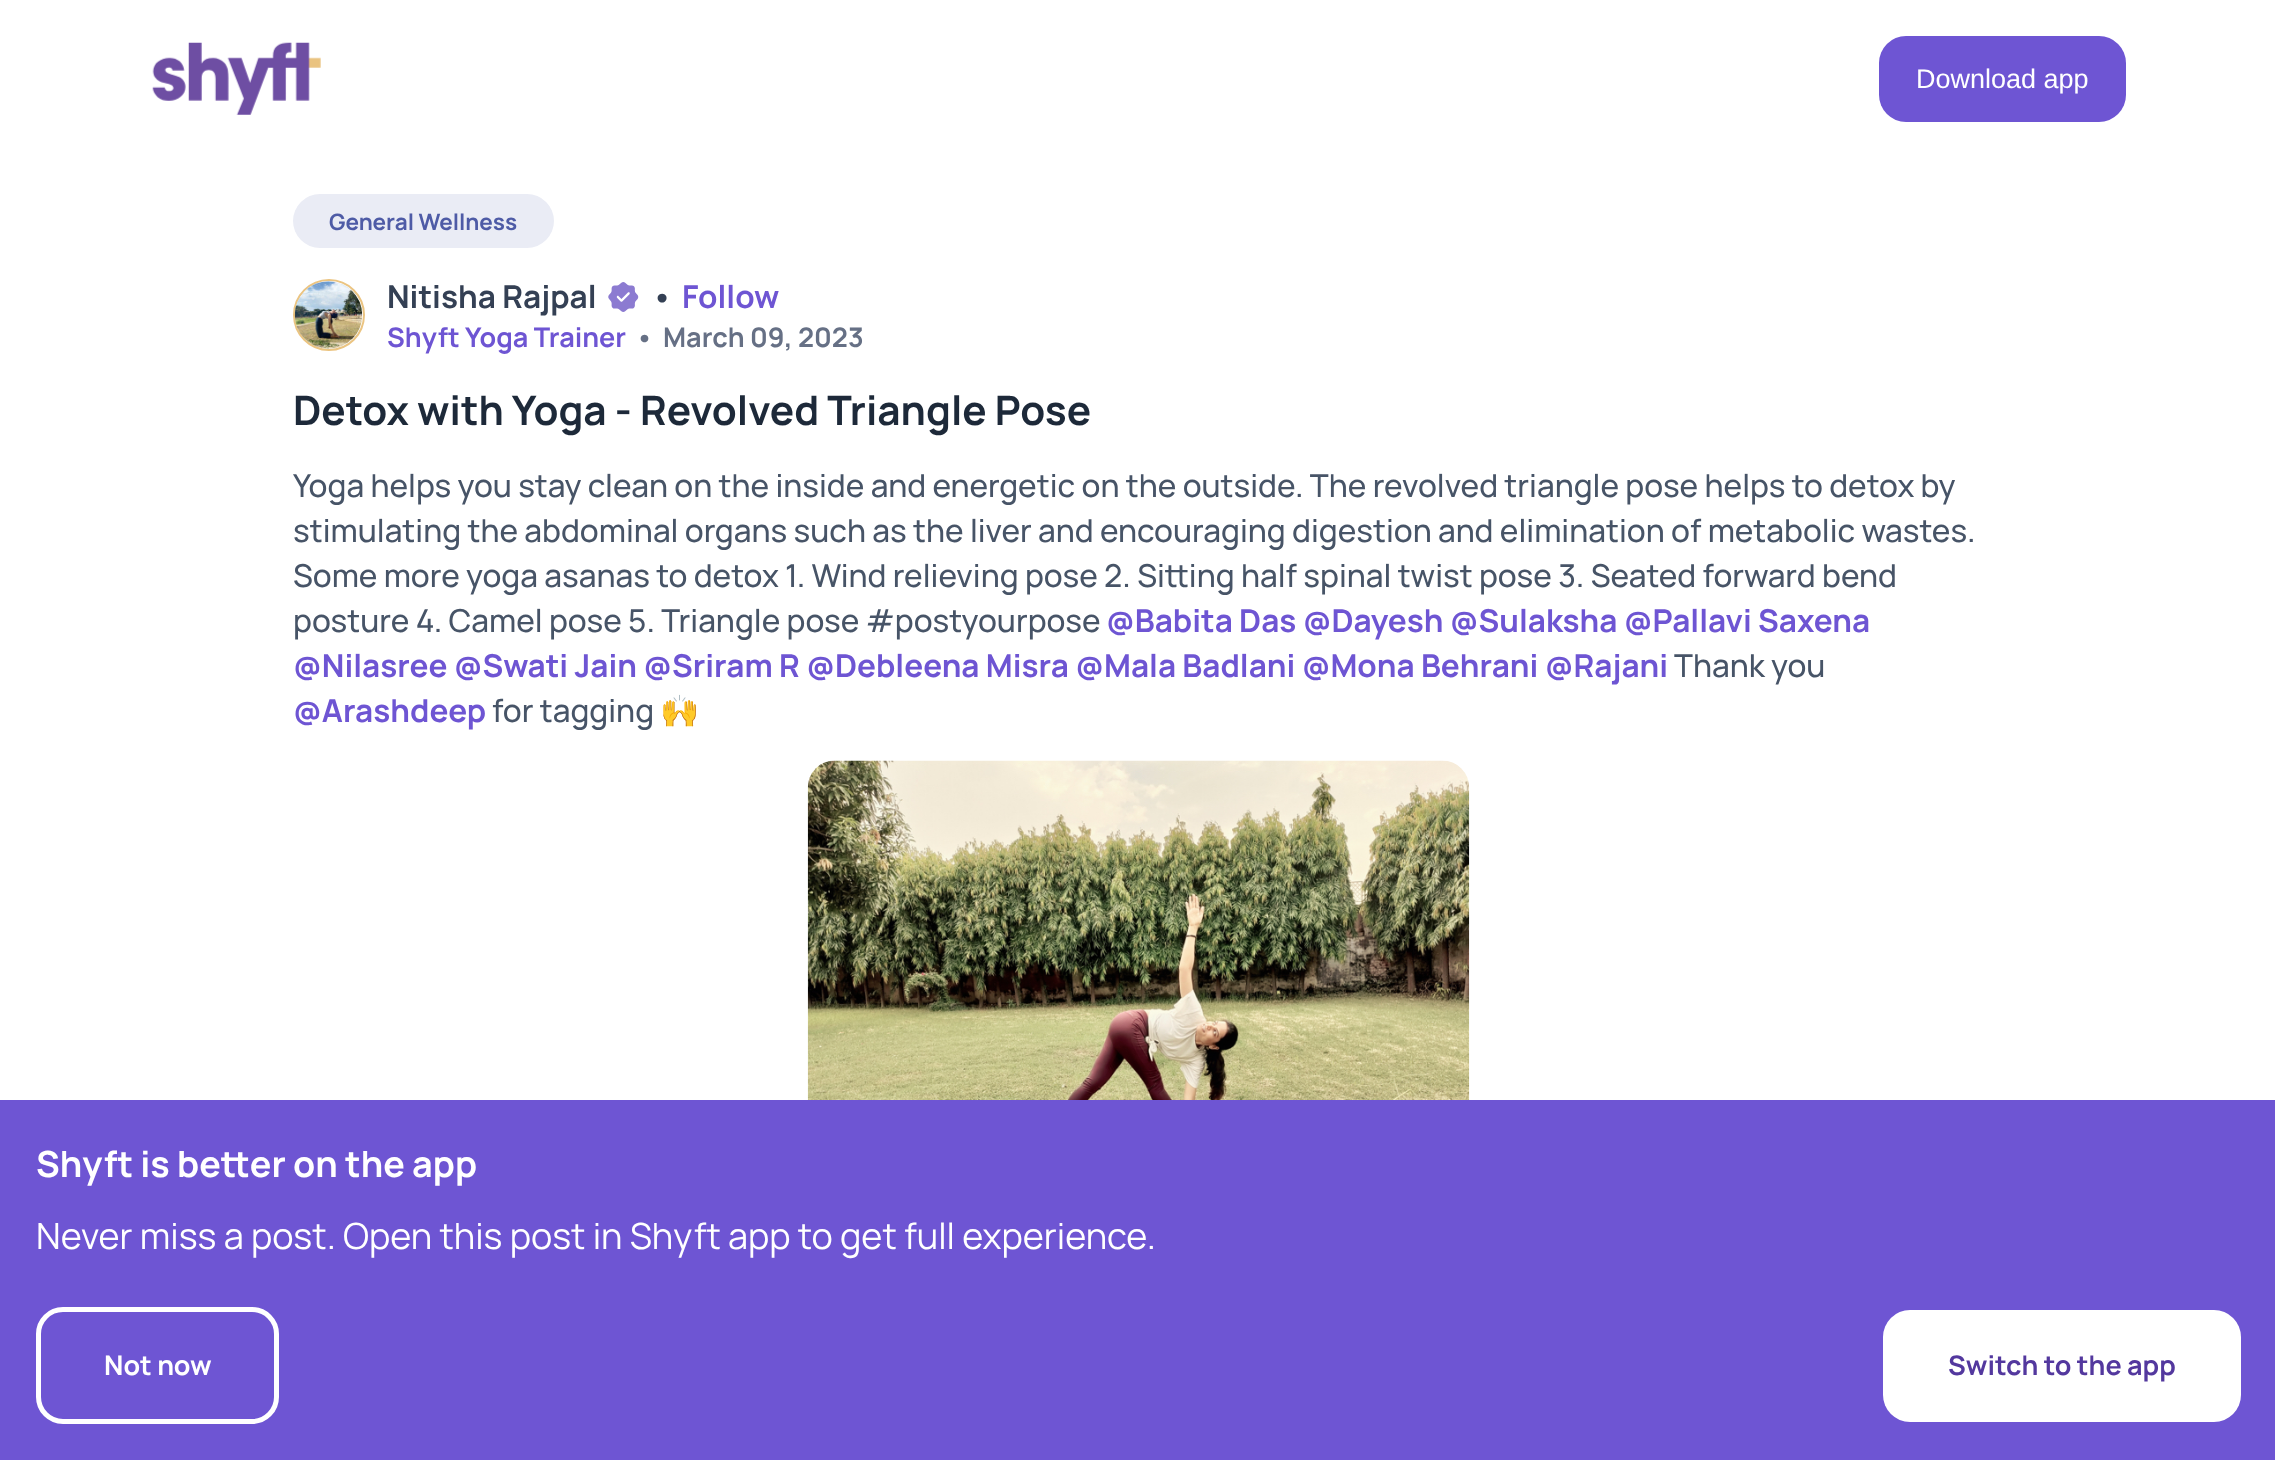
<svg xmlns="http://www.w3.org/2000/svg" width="2275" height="1460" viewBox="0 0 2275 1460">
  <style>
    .t1 { font: 27px Liberation Sans; fill: #fff; }
    .t2 { font: bold 22.5px Manrope; fill: #4e5ba6; }
    .t3 { font: bold 31.5px Manrope; fill: #344054; }
    .t4 { font: bold 31.5px Manrope; fill: #6e55d3; }
    .t5 { font: bold 27px Manrope; fill: #6e55d3; }
    .t6 { font: bold 27px Manrope; fill: #667085; }
    .t7 { font: bold 40.5px Manrope; fill: #1d2939; }
    .t8 { font: 500 31.5px Manrope; fill: #475467; }
    .t9 { font: 31.5px Noto Color Emoji; fill: #475467; }
    .t10 { font: bold 36px Manrope; fill: #fff; }
    .t11 { font: 36px Manrope; fill: #fff; }
    .t12 { font: bold 27px Manrope; fill: #fff; }
    .t13 { font: bold 27px Manrope; fill: #53389e; }
  </style>
  <rect width="100%" height="100%" fill="#fff"/>
  <image x="152" y="42" width="169" height="73" href="images/1.png"/>
  <rect x="1879" y="36" width="247" height="86" rx="27" fill="#6e55d3"/>
  <text x="1916" y="88" class="t1">Download app</text>
  <rect x="293" y="194" width="261" height="54" rx="27" fill="#eaecf5"/>
  <text x="329" y="230" class="t2">General Wellness</text>
  <circle cx="329" cy="315" r="35" fill="none" stroke="#ebc481" stroke-width="2"/>
  <image x="294" y="281" width="69" height="68" href="images/2.png"/>
  <text x="387" y="308" class="t3">Nitisha Rajpal</text>
  <image x="608" y="282" width="31" height="30" href="images/3.png"/>
  <text x="651" y="308" class="t3">•</text>
  <text x="682" y="308" class="t4">Follow</text>
  <text x="387" y="347" class="t5">Shyft Yoga Trainer</text>
  <text x="635" y="347" class="t6">•</text>
  <text x="663" y="347" class="t6">March 09, 2023</text>
  <text x="293" y="425" class="t7">Detox with Yoga - Revolved Triangle Pose</text>
  <text x="293" y="497" class="t8">Yoga helps you stay clean on the inside and energetic on the outside. The revolved triangle pose helps to detox by</text>
  <text x="293" y="542" class="t8">stimulating the abdominal organs such as the liver and encouraging digestion and elimination of metabolic wastes.</text>
  <text x="293" y="587" class="t8">Some more yoga asanas to detox 1. Wind relieving pose 2. Sitting half spinal twist pose 3. Seated forward bend</text>
  <text x="293" y="632" class="t8">posture 4. Camel pose 5. Triangle pose #postyourpose</text>
  <text x="1106" y="632" class="t4">@Babita Das @Dayesh @Sulaksha @Pallavi Saxena</text>
  <text x="293" y="677" class="t4">@Nilasree @Swati Jain @Sriram R @Debleena Misra @Mala Badlani @Mona Behrani @Rajani</text>
  <text x="1674" y="677" class="t8">Thank you</text>
  <text x="293" y="722" class="t4">@Arashdeep</text>
  <text x="492" y="722" class="t8">for tagging</text>
  <text x="660" y="722" class="t9">🙌</text>
  <image x="807" y="760" width="663" height="340" href="images/4.png"/>
  <rect x="0" y="1100" width="2275" height="360" fill="#6e55d3"/>
  <text x="36" y="1177" class="t10">Shyft is better on the app</text>
  <text x="36" y="1249" class="t11">Never miss a post. Open this post in Shyft app to get full experience.</text>
  <rect x="38.5" y="1309.5" width="238" height="112" rx="24.5" fill="none" stroke="#fff" stroke-width="5"/>
  <text x="104" y="1375" class="t12">Not now</text>
  <rect x="1883" y="1310" width="358" height="112" rx="27" fill="#fff"/>
  <text x="1948" y="1375" class="t13">Switch to the app</text>
</svg>
